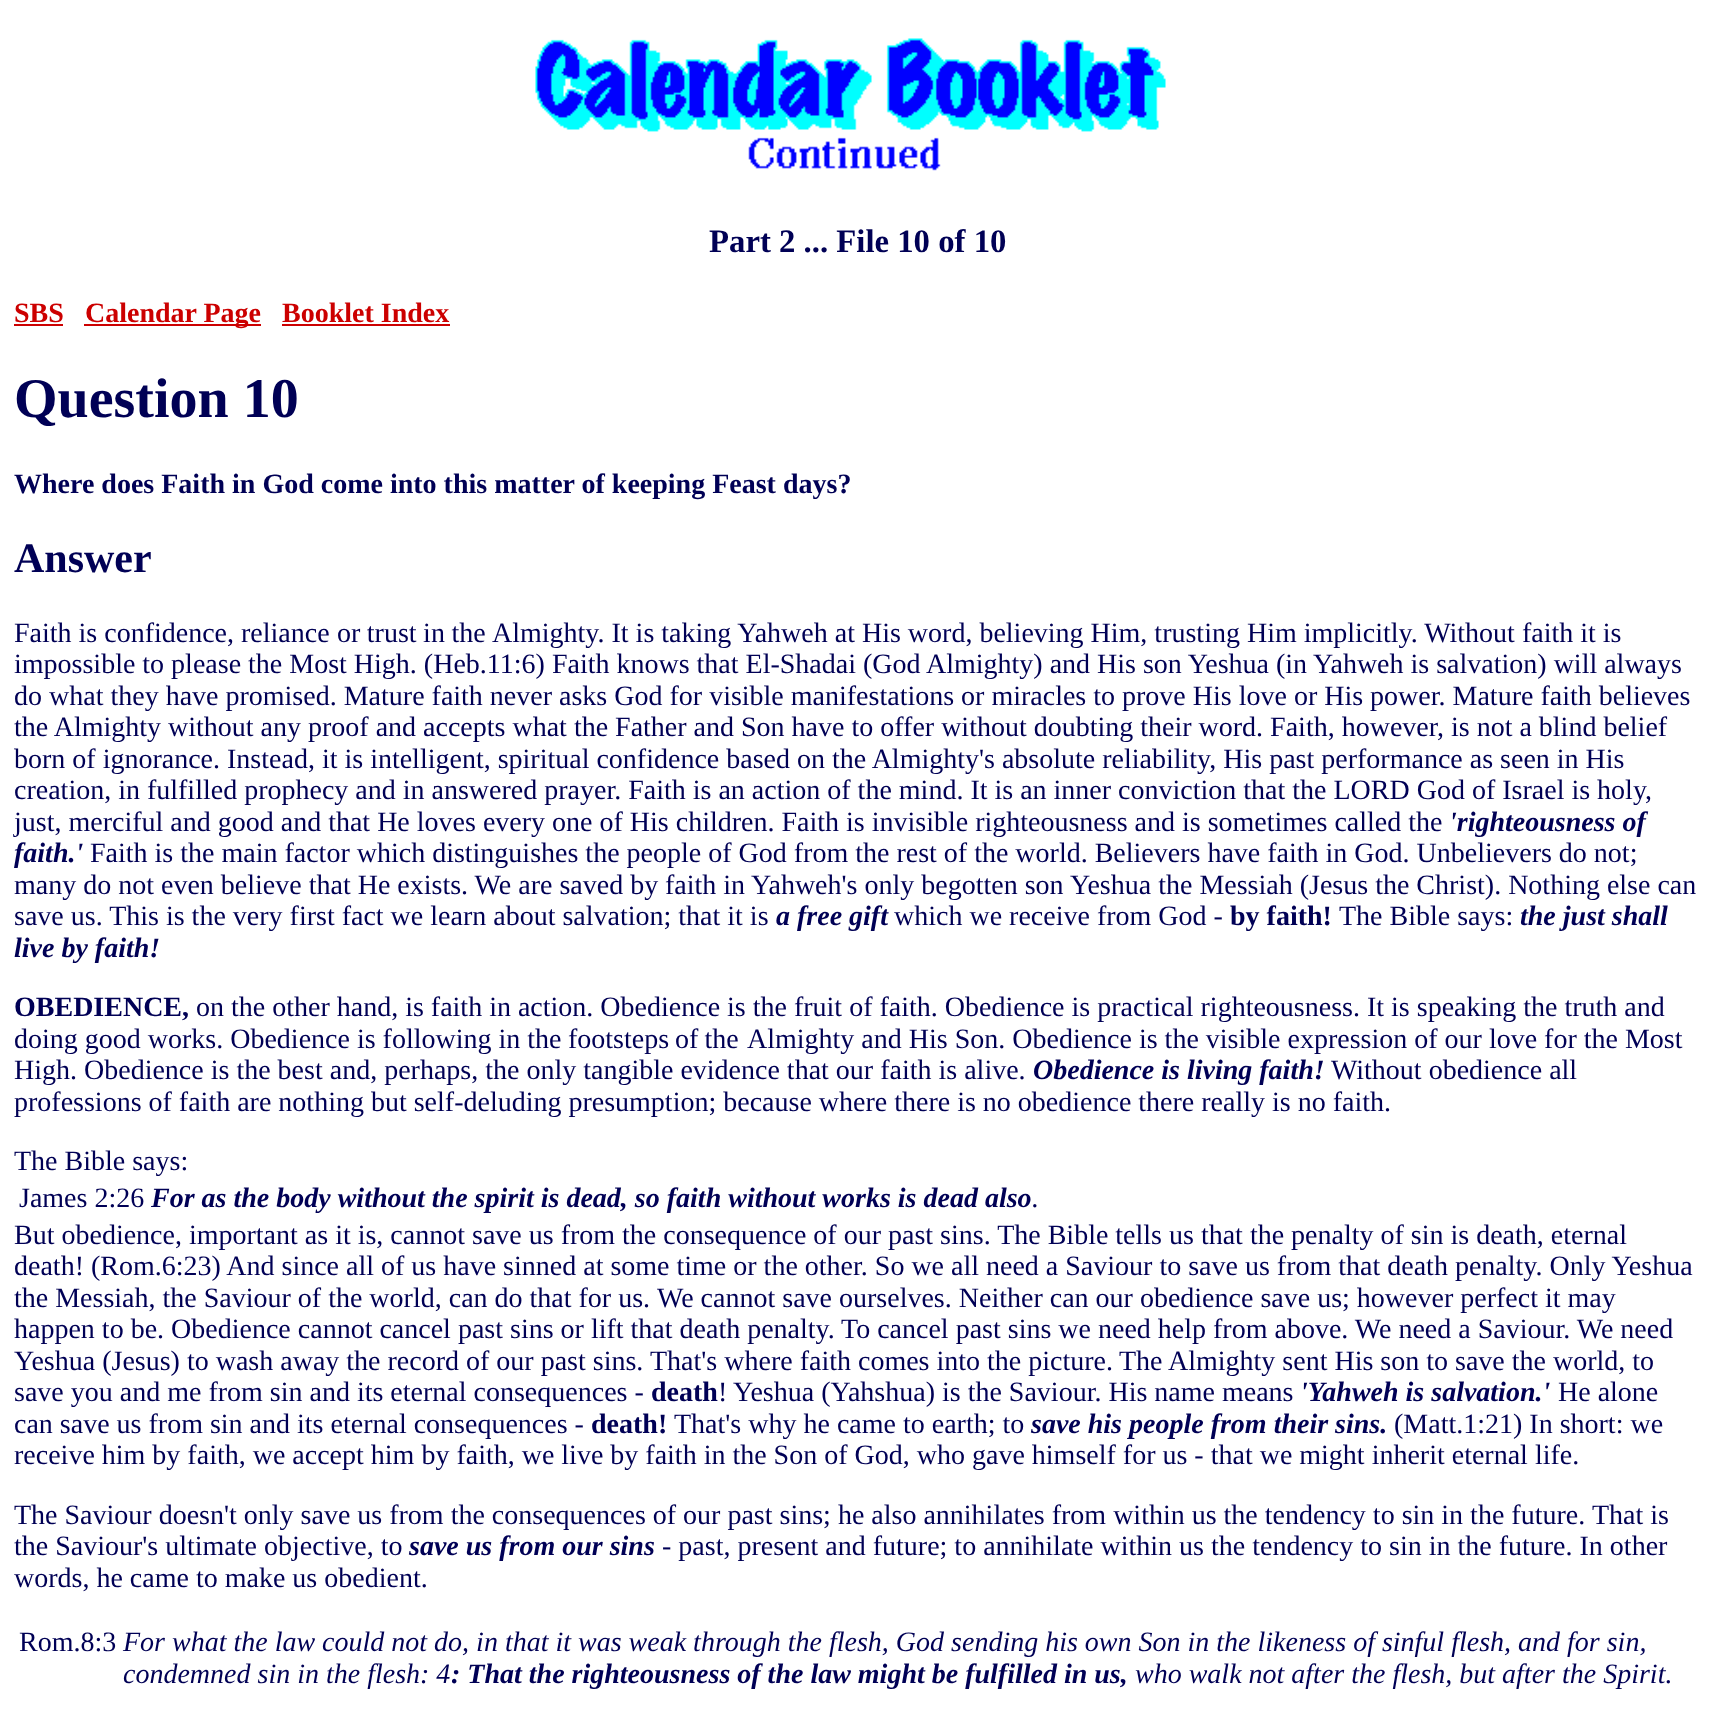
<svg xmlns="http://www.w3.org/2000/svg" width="1715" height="1731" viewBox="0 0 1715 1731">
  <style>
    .t1 { font: bold 32.75px Liberation Serif; fill: #005; }
    .t2 { font: bold 28px Liberation Serif; fill: #c00; }
    .t3 { font: bold 56px Liberation Serif; fill: #005; }
    .t4 { font: bold 28px Liberation Serif; fill: #005; }
    .t5 { font: bold 42px Liberation Serif; fill: #005; }
    .t6 { font: 28px Liberation Serif; fill: #005; }
    .t7 { font: italic bold 28px Liberation Serif; fill: #005; }
    .t8 { font: italic 28px Liberation Serif; fill: #005; }
  </style>
  <rect width="100%" height="100%" fill="#fff"/>
  <image x="535" y="38" width="631" height="133" href="images/1.png"/>
  <text x="709" y="252" class="t1">Part 2 ... File 10 of 10</text>
  <text x="14" y="322" class="t2">SBS</text>
  <rect x="14" y="324" width="49" height="2" fill="#c00"/>
  <rect x="84" y="324" width="177" height="2" fill="#c00"/>
  <text x="85" y="322" class="t2">Calendar Page</text>
  <text x="282" y="322" class="t2">Booklet Index</text>
  <rect x="282" y="324" width="168" height="2" fill="#c00"/>
  <text x="14" y="417" class="t3">Question 10</text>
  <text x="14" y="493" class="t4">Where does Faith in God come into this matter of keeping Feast days?</text>
  <text x="14" y="572" class="t5">Answer</text>
  <text x="14" y="642" class="t6">Faith is confidence, reliance</text>
  <text x="337" y="642" word-spacing="-0.5" class="t6">or trust in the</text>
  <text x="492" y="642" class="t6">Almighty. It is taking Yahweh at His word, believing Him, trusting Him implicitly. Without faith it is</text>
  <text x="14" y="673" class="t6">impossible to please the Most High. (Heb.11:6) Faith knows that El-Shadai (God Almighty) and His son Yeshua (in Yahweh is salvation) will always</text>
  <text x="14" y="705" class="t6">do what they have promised. Mature faith never asks God for visible manifestations or miracles to prove His love or His power. Mature faith believes</text>
  <text x="14" y="736" class="t6">the Almighty without any proof and accepts what the Father and Son have to offer without doubting their word. Faith, however, is not a blind belief</text>
  <text x="14" y="768" class="t6">born of ignorance. Instead, it is intelligent, spiritual confidence based on the Almighty's absolute reliability, His past performance as seen in His</text>
  <text x="14" y="799" class="t6">creation, in fulfilled prophecy and in answered prayer. Faith is an action of the mind. It is an inner conviction that the LORD God of Israel is holy,</text>
  <text x="14" y="831" class="t6">just, merciful and good and that He loves every one of His children. Faith is invisible righteousness and is sometimes called the</text>
  <text x="1449" y="831" class="t7">'righteousness of</text>
  <text x="14" y="862" class="t7">faith.'</text>
  <text x="90" y="862" class="t6">Faith is the main factor which distinguishes the people of God from the rest of the world. Believers have faith in God. Unbelievers do not;</text>
  <text x="14" y="894" class="t6">many do not even believe that He exists. We are saved by</text>
  <text x="665" y="894" class="t6">faith in Yahweh's only begotten son</text>
  <text x="1070" y="894" class="t6">Yeshua the Messiah (Jesus the Christ). Nothing else can</text>
  <text x="14" y="925" class="t6">save us. This is the very first fact we learn about salvation; that it is</text>
  <text x="776" y="925" class="t7">a free gift</text>
  <text x="894" y="925" class="t6">which we receive from God -</text>
  <text x="1230" y="925" class="t4">by faith!</text>
  <text x="1339" y="925" class="t6">The Bible says:</text>
  <text x="1520" y="925" class="t7">the just shall</text>
  <text x="14" y="957" class="t7">live by faith!</text>
  <text x="14" y="1016" class="t4">OBEDIENCE,</text>
  <text x="196" y="1016" class="t6">on the other hand, is faith in action. Obedience is the fruit of faith. Obedience is practical righteousness. It is speaking the truth and</text>
  <text x="14" y="1048" class="t6">doing good works. Obedience is following in the</text>
  <text x="568" y="1048" word-spacing="-1" class="t6">footsteps of the</text>
  <text x="747" y="1048" class="t6">Almighty and His Son. Obedience is the visible expression of our love for the Most</text>
  <text x="14" y="1079" class="t6">High. Obedience is the best and, perhaps, the only tangible evidence that our faith is alive.</text>
  <text x="1033" y="1079" class="t7">Obedience is living faith!</text>
  <text x="1331" y="1079" class="t6">Without obedience all</text>
  <text x="14" y="1111" class="t6">professions of faith are nothing but self-deluding presumption; because where there is no obedience there really is no faith.</text>
  <text x="14" y="1170" class="t6">The Bible says:</text>
  <text x="19" y="1207" class="t6">James 2:26</text>
  <text x="151" y="1207" class="t7">For as the body without the spirit is dead, so faith without works is dead also</text>
  <text x="1032" y="1207" class="t8">.</text>
  <text x="14" y="1244" class="t6">But obedience, important as it is, cannot save us from the consequence of our past sins. The Bible tells us that the penalty of sin is death, eternal</text>
  <text x="14" y="1275" class="t6">death! (Rom.6:23) And since all of us have sinned at some time or the other. So we all need a Saviour to save us from that death penalty. Only Yeshua</text>
  <text x="14" y="1307" class="t6">the Messiah, the Saviour of the world, can do that for us.</text>
  <text x="657" y="1307" class="t6">We cannot save ourselves. Neither can our obedience save us; however perfect it may</text>
  <text x="14" y="1338" class="t6">happen to be. Obedience cannot cancel past sins or lift that death penalty.</text>
  <text x="841" y="1338" class="t6">To cancel past sins we need help from above. We need a Saviour. We need</text>
  <text x="14" y="1370" class="t6">Yeshua (Jesus) to wash away the record of our past sins.</text>
  <text x="650" y="1370" class="t6">That's where faith comes into the picture.</text>
  <text x="1119" y="1370" class="t6">The Almighty sent His son to save the world, to</text>
  <text x="14" y="1401" class="t6">save you and me from sin and its eternal consequences -</text>
  <text x="651" y="1401" class="t4">death</text>
  <text x="718" y="1401" class="t6">!</text>
  <text x="733" y="1401" class="t6">Yeshua (Yahshua) is the Saviour. His name means</text>
  <text x="1300" y="1401" class="t7">'Yahweh is salvation.'</text>
  <text x="1558" y="1401" class="t6">He alone</text>
  <text x="14" y="1433" class="t6">can save us from sin and its eternal consequences -</text>
  <text x="591" y="1433" class="t4">death!</text>
  <text x="674" y="1433" class="t6">That's why he came to earth; to</text>
  <text x="1031" y="1433" class="t7">save his people from their sins.</text>
  <text x="1394" y="1433" class="t6">(Matt.1:21) In short: we</text>
  <text x="14" y="1464" class="t6">receive him by faith, we accept him by faith, we live by faith in the Son of God, who gave himself for us - that we might inherit eternal life.</text>
  <text x="14" y="1524" class="t6">The Saviour doesn't only save us from the consequences of our past sins; he also annihilates from within us the tendency to sin in the future.</text>
  <text x="1592" y="1524" class="t6">That is</text>
  <text x="14" y="1555" class="t6">the Saviour's ultimate objective, to</text>
  <text x="409" y="1555" class="t7">save us from our sins</text>
  <text x="662" y="1555" class="t6">- past, present and future; to annihilate within us the tendency to sin in the future. In other</text>
  <text x="14" y="1587" class="t6">words, he came to make us obedient.</text>
  <text x="19" y="1651" class="t6">Rom.8:3</text>
  <text x="123" y="1651" class="t8">For what the law could not do, in that it was weak through the flesh, God sending his own Son in the likeness of sinful flesh, and for sin,</text>
  <text x="123" y="1683" class="t8">condemned sin in the flesh: 4</text>
  <text x="451" y="1683" class="t7">: That the righteousness of the law might be fulfilled in us,</text>
  <text x="1135" y="1683" class="t8">who walk not after the flesh, but after the Spirit.</text>
</svg>
